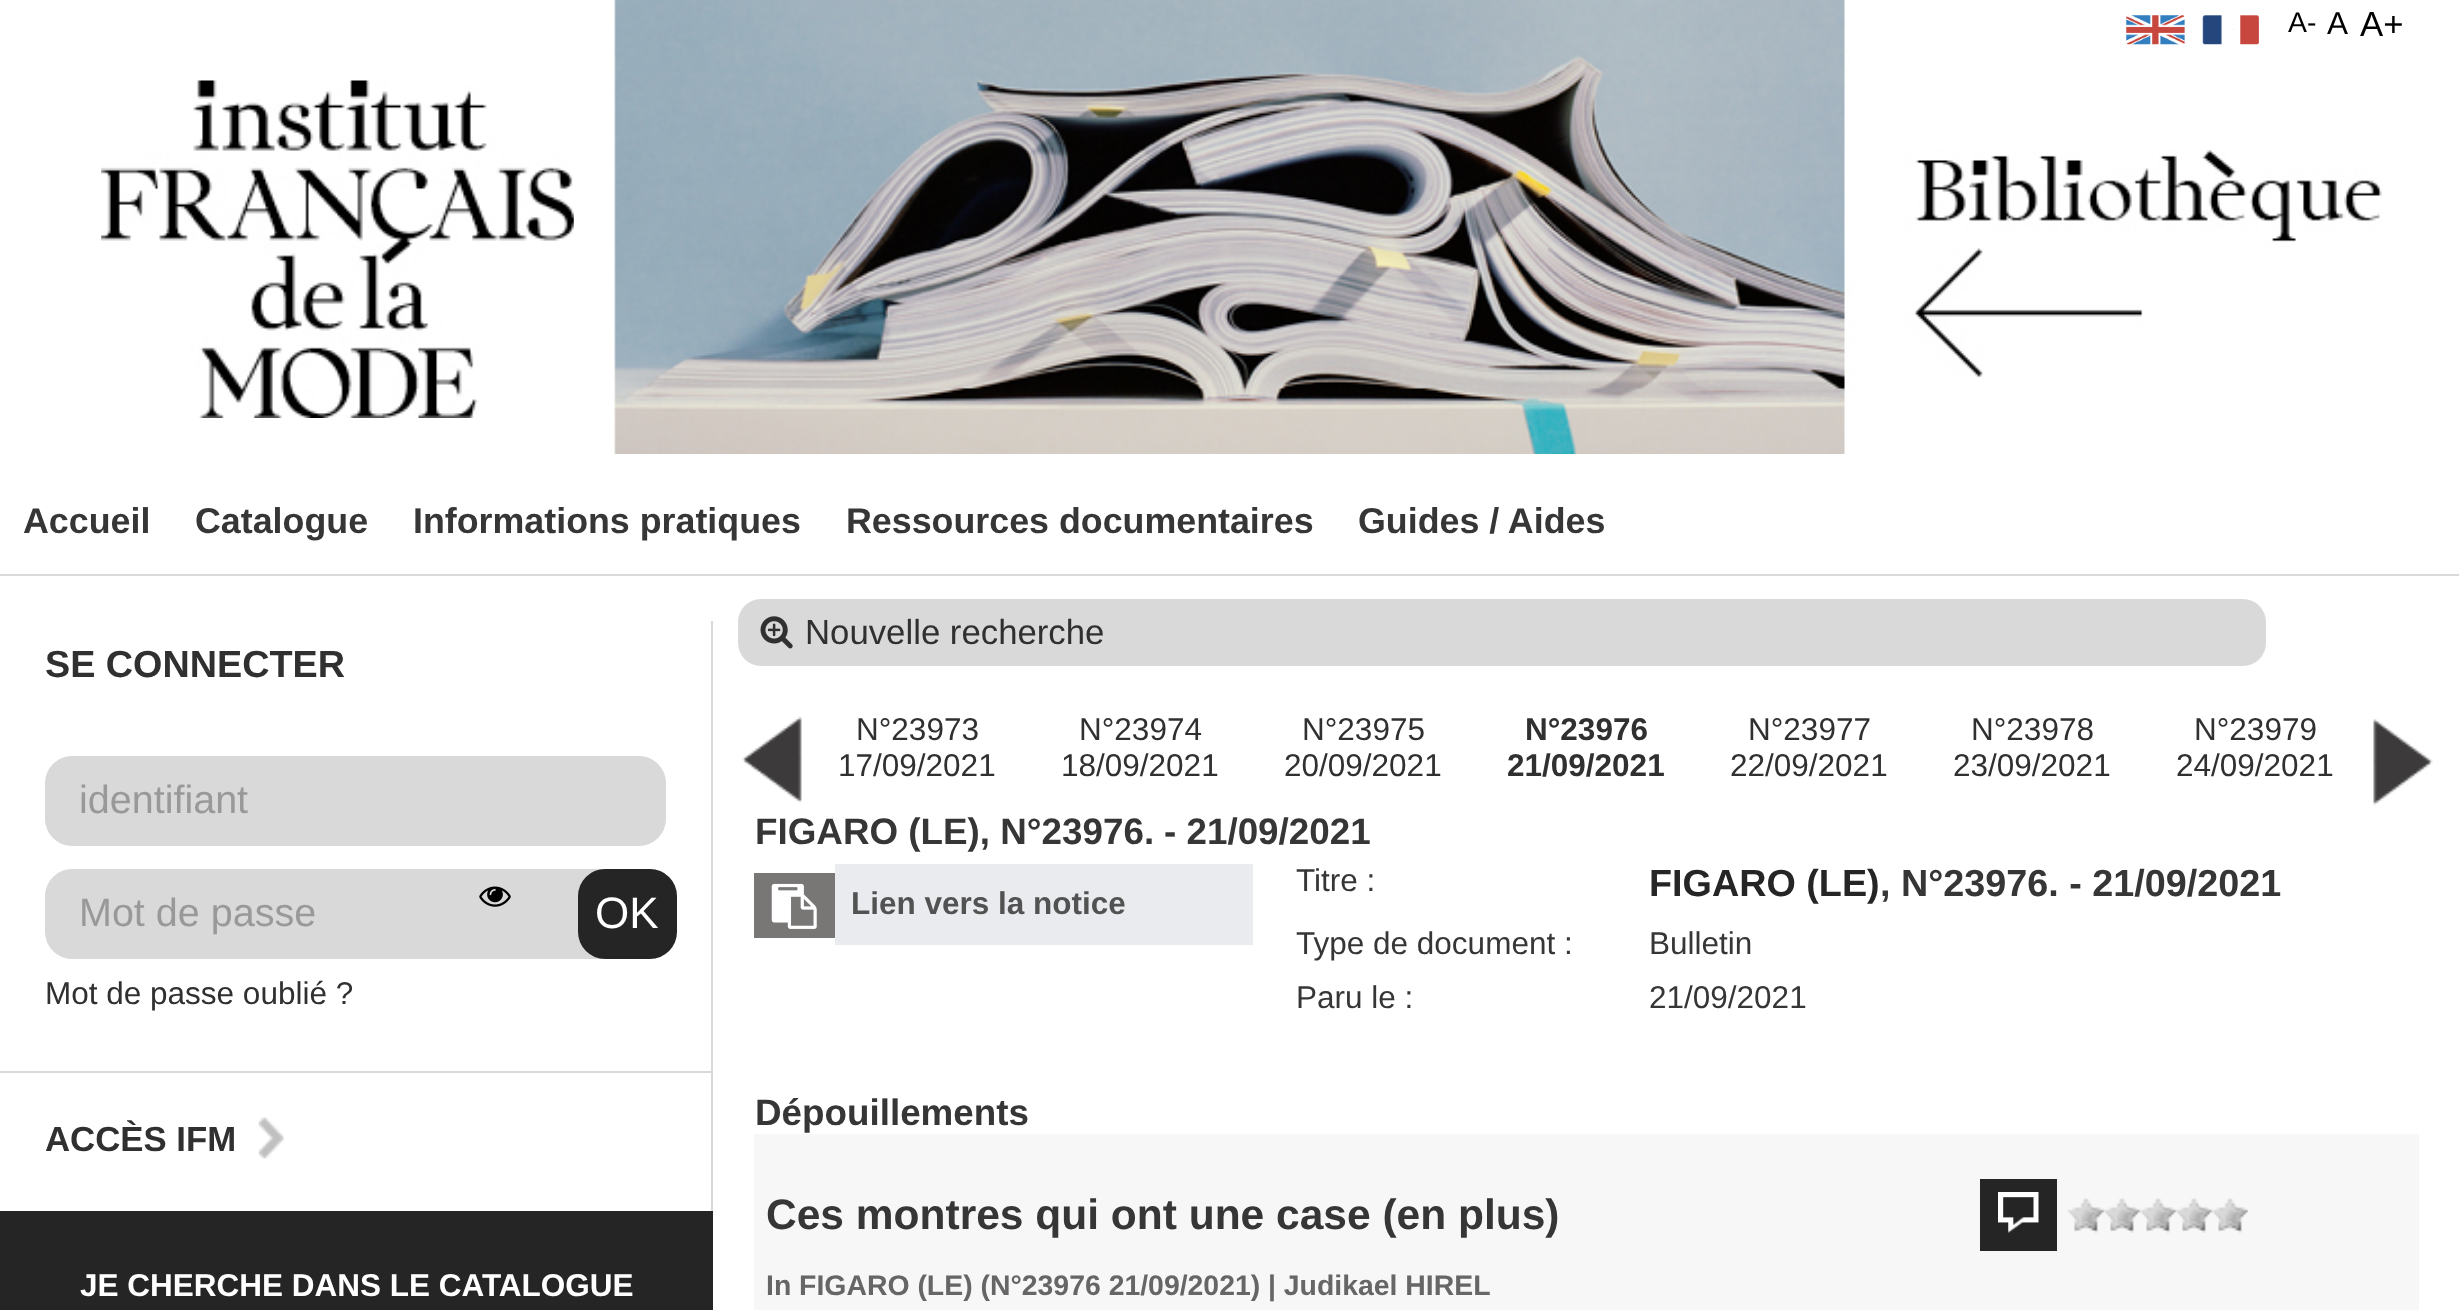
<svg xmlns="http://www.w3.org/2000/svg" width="2459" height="1310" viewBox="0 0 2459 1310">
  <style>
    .t1 { font: 28.4px Liberation Sans; fill: #000; }
    .t2 { font: 31.5px Liberation Sans; fill: #000; }
    .t3 { font: 34.75px Liberation Sans; fill: #000; }
    .t4 { font: bold 35.8px Liberation Sans; fill: #363636; }
    .t5 { font: bold 37.75px Liberation Sans; fill: #303030; }
    .t6 { font: 39.5px Liberation Sans; fill: #999; }
    .t7 { font: 44px Liberation Sans; fill: #fff; }
    .t8 { font: 31.5px Liberation Sans; fill: #303030; }
    .t9 { font: bold 34.75px Liberation Sans; fill: #303030; }
    .t10 { font: bold 31.5px Liberation Sans; fill: #fff; }
    .t11 { font: 34.75px Liberation Sans; fill: #303030; }
    .t12 { font: bold 31.5px Liberation Sans; fill: #303030; }
    .t13 { font: bold 36.8px Liberation Sans; fill: #363636; }
    .t14 { font: bold 31.5px Liberation Sans; fill: #525252; }
    .t15 { font: 31.5px Liberation Sans; fill: #363636; }
    .t16 { font: bold 37.75px Liberation Sans; fill: #252525; }
    .t17 { font: bold 37.75px Liberation Sans; fill: #363636; }
    .t18 { font: bold 42.5px Liberation Sans; fill: #363636; }
    .t19 { font: bold 28.4px Liberation Sans; fill: #666; }
  </style>
  <rect width="100%" height="100%" fill="#fff"/>
  <image x="614" y="0" width="1768" height="454" href="images/1.png"/>
  <rect x="0" y="574" width="2459" height="2" fill="#d9d9d9"/>
  <image x="2126" y="15" width="59" height="30" href="images/2.png"/>
  <image x="2202" y="15" width="57" height="30" href="images/3.png"/>
  <text x="2288" y="32" class="t1">A-</text>
  <text x="2327" y="34" class="t2">A</text>
  <text x="2360" y="36" class="t3">A+</text>
  <image x="101" y="80" width="473" height="338" href="images/4.png"/>
  <text x="23" y="533" class="t4">Accueil</text>
  <text x="195" y="533" class="t4">Catalogue</text>
  <text x="413" y="533" class="t4">Informations pratiques</text>
  <text x="846" y="533" class="t4">Ressources documentaires</text>
  <text x="1358" y="533" class="t4">Guides / Aides</text>
  <rect x="711" y="621" width="2" height="450" fill="#dadada"/>
  <text x="45" y="677" class="t5">SE CONNECTER</text>
  <rect x="45" y="756" width="621" height="90" rx="27" fill="#d9d9d9"/>
  <text x="79" y="813" class="t6">identifiant</text>
  <rect x="45" y="869" width="621" height="90" rx="27" fill="#d9d9d9"/>
  <text x="79" y="926" class="t6">Mot de passe</text>
  <image x="479" y="886" width="32" height="21" href="images/5.png"/>
  <rect x="578" y="869" width="99" height="90" rx="27" fill="#252525"/>
  <text x="595" y="928" class="t7">OK</text>
  <text x="45" y="1004" class="t8">Mot de passe oublié ?</text>
  <rect x="0" y="1071" width="713" height="2" fill="#d9d9d9"/>
  <rect x="711" y="1071" width="2" height="140" fill="#d9d9d9"/>
  <text x="45" y="1151" class="t9">ACCÈS IFM</text>
  <image x="258" y="1117" width="26" height="42" href="images/6.png"/>
  <rect x="0" y="1211" width="713" height="99" fill="#252525"/>
  <text x="80" y="1296" class="t10">JE CHERCHE DANS LE CATALOGUE</text>
  <rect x="738" y="599" width="1528" height="67" rx="23" fill="#d9d9d9"/>
  <image x="760" y="616" width="33" height="33" href="images/7.png"/>
  <text x="805" y="644" class="t11">Nouvelle recherche</text>
  <image x="742" y="716" width="60" height="87" href="images/8.png"/>
  <text x="856" y="740" class="t8">N°23973</text>
  <text x="838" y="776" class="t8">17/09/2021</text>
  <text x="1079" y="740" class="t8">N°23974</text>
  <text x="1061" y="776" class="t8">18/09/2021</text>
  <text x="1302" y="740" class="t8">N°23975</text>
  <text x="1284" y="776" class="t8">20/09/2021</text>
  <text x="1525" y="740" class="t12">N°23976</text>
  <text x="1507" y="776" class="t12">21/09/2021</text>
  <text x="1748" y="740" class="t8">N°23977</text>
  <text x="1730" y="776" class="t8">22/09/2021</text>
  <text x="1971" y="740" class="t8">N°23978</text>
  <text x="1953" y="776" class="t8">23/09/2021</text>
  <text x="2194" y="740" class="t8">N°23979</text>
  <text x="2176" y="776" class="t8">24/09/2021</text>
  <image x="2373" y="719" width="60" height="87" href="images/9.png"/>
  <text x="755" y="844" class="t13">FIGARO (LE), N°23976.</text>
  <text x="1164" y="844" class="t13">- 21/09/2021</text>
  <rect x="754" y="873" width="81" height="65" fill="#797676"/>
  <image x="771" y="883" width="46" height="46" href="images/10.png"/>
  <rect x="835" y="864" width="418" height="81" fill="#e9ebee"/>
  <text x="851" y="914" class="t14">Lien vers la notice</text>
  <text x="1296" y="891" class="t15">Titre :</text>
  <text x="1649" y="896" class="t16">FIGARO (LE)</text>
  <text x="1880" y="896" class="t17">, N°23976. - 21/09/2021</text>
  <text x="1296" y="954" class="t15">Type de document :</text>
  <text x="1649" y="954" class="t15">Bulletin</text>
  <text x="1296" y="1008" class="t15">Paru le :</text>
  <text x="1649" y="1008" class="t15">21/09/2021</text>
  <text x="755" y="1125" class="t13">Dépouillements</text>
  <rect x="754" y="1134" width="1665" height="176" fill="#f7f7f7"/>
  <text x="766" y="1229" class="t18">Ces montres qui ont une case (en plus)</text>
  <text x="766" y="1295" class="t19">In FIGARO (LE) (N°23976 21/09/2021)</text>
  <text x="1268" y="1295" class="t19">| Judikael HIREL</text>
  <rect x="1980" y="1179" width="77" height="72" fill="#252525"/>
  <image x="1998" y="1192" width="41" height="41" href="images/11.png"/>
  <image x="2067" y="1198" width="37" height="35" href="images/12.png"/>
  <image x="2103" y="1198" width="37" height="35" href="images/13.png"/>
  <image x="2139" y="1198" width="37" height="35" href="images/13.png"/>
  <image x="2175" y="1198" width="37" height="35" href="images/13.png"/>
  <image x="2211" y="1198" width="37" height="35" href="images/13.png"/>
</svg>
